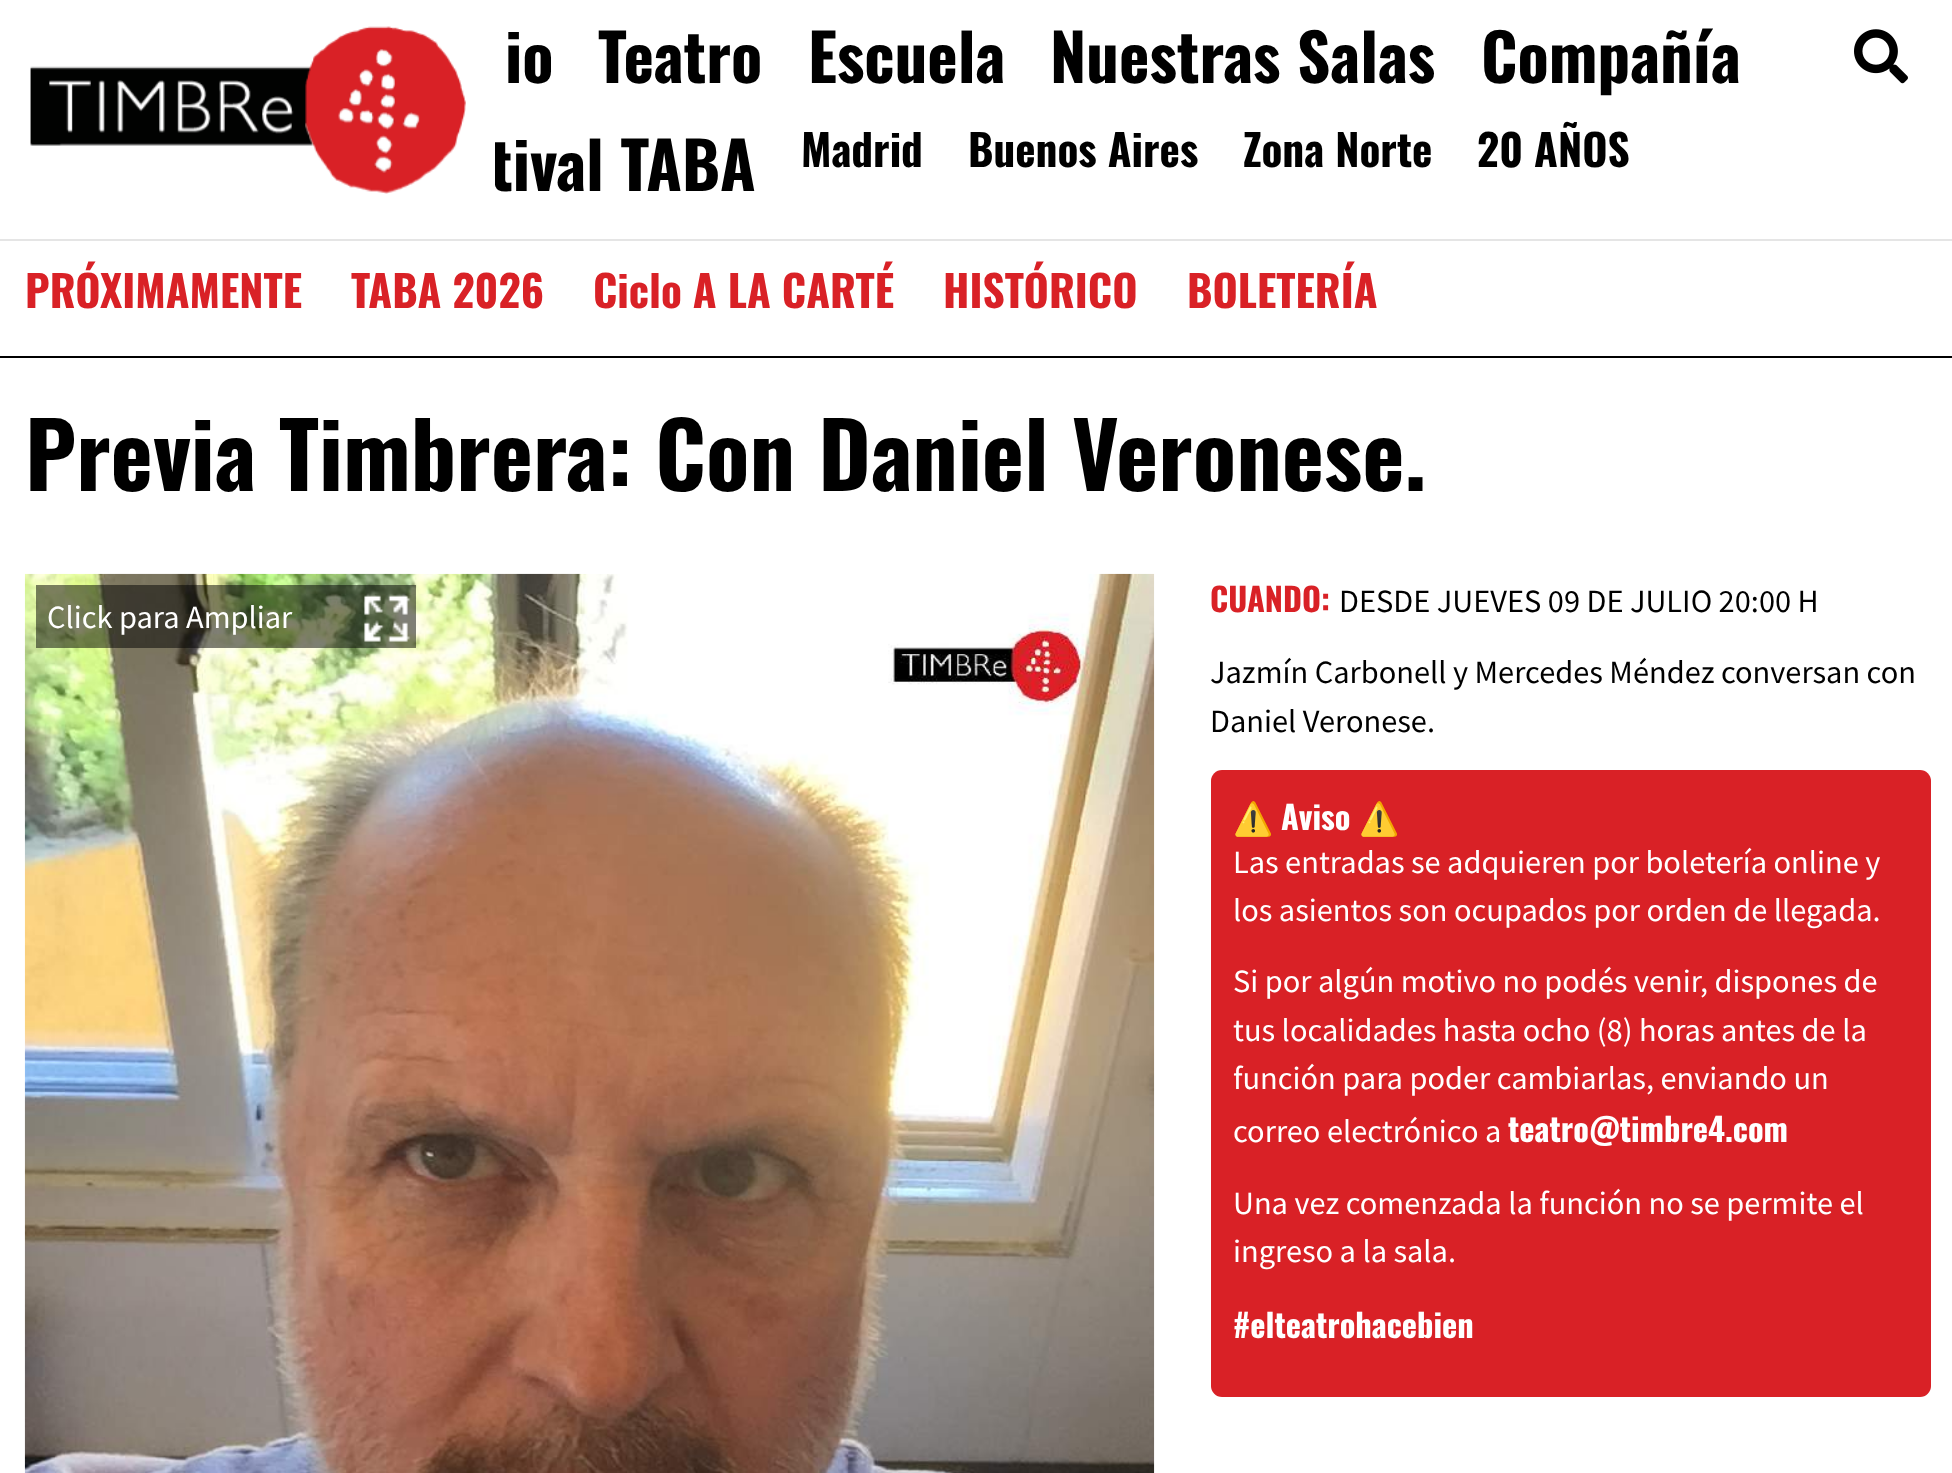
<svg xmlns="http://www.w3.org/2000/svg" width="1952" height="1473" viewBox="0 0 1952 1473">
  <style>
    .t1 { font: bold 64.75px Oswald; fill: #000; }
    .t2 { font: bold 43.25px Oswald; fill: #000; }
    .t3 { font: bold 43.25px Oswald; fill: #d92126; }
    .t4 { font: bold 90px Oswald; fill: #000; }
    .t5 { font: 32.4px Source Sans Pro; fill: #fff; }
    .t6 { font: bold 32.4px Oswald; fill: #d92126; }
    .t7 { font: 32.4px Source Sans Pro; fill: #000; }
    .t8 { font: bold 32.4px Noto Color Emoji; fill: #fff; }
    .t9 { font: bold 32.4px Oswald; fill: #fff; }
  </style>
  <defs>
    <clipPath id="clip1"><rect x="495" y="0" width="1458" height="216"/></clipPath>
  </defs>
  <rect width="100%" height="100%" fill="#fff"/>
  <image x="30" y="26" width="436" height="168" href="images/1.png"/>
  <rect x="0" y="239" width="1952" height="2" fill="#e5e5e5"/>
  <text x="505" y="83" class="t1">io</text>
  <text x="598" y="83" class="t1">Teatro</text>
  <text x="808" y="83" class="t1">Escuela</text>
  <text x="1050" y="83" class="t1">Nuestras Salas</text>
  <text x="1481" y="83" class="t1">Compañía</text>
  <g clip-path="url(#clip1)">
    <text x="490" y="191" class="t1">tival TABA</text>
  </g>
  <text x="801" y="167" class="t2">Madrid</text>
  <text x="968" y="167" class="t2">Buenos Aires</text>
  <text x="1243" y="167" class="t2">Zona Norte</text>
  <text x="1477" y="167" class="t2">20 AÑOS</text>
  <image x="1854" y="29" width="54" height="55" href="images/2.png"/>
  <rect x="0" y="356" width="1952" height="2" fill="#000"/>
  <text x="25" y="308" class="t3">PRÓXIMAMENTE</text>
  <text x="351" y="308" class="t3">TABA 2026</text>
  <text x="593" y="308" class="t3">Ciclo A LA CARTÉ</text>
  <text x="943" y="308" class="t3">HISTÓRICO</text>
  <text x="1187" y="308" class="t3">BOLETERÍA</text>
  <text x="25" y="491" class="t4">Previa Timbrera: Con Daniel Veronese.</text>
  <image x="24" y="573" width="1131" height="900" href="images/3.png"/>
  <rect x="36" y="585" width="380" height="63" fill="#00000080"/>
  <image x="364" y="593" width="47" height="49" href="images/4.png"/>
  <text x="47" y="628" class="t5">Click para Ampliar</text>
  <text x="1210" y="612" class="t6">CUANDO:</text>
  <text x="1339" y="612" class="t7">DESDE JUEVES 09 DE JULIO 20:00 H</text>
  <text x="1210" y="683" class="t7">Jazmín Carbonell y Mercedes Méndez conversan con</text>
  <text x="1210" y="732" class="t7">Daniel Veronese.</text>
  <rect x="1211" y="770" width="720" height="627" rx="11" fill="#d92126"/>
  <text x="1233" y="830" class="t8">⚠️</text>
  <text x="1281" y="830" class="t9">Aviso</text>
  <text x="1359" y="830" class="t8">⚠️</text>
  <text x="1233" y="873" class="t5">Las entradas se adquieren por boletería online y</text>
  <text x="1233" y="921" class="t5">los asientos son ocupados por orden de llegada.</text>
  <text x="1233" y="992" class="t5">Si por algún motivo no podés venir, dispones de</text>
  <text x="1233" y="1041" class="t5">tus localidades hasta ocho (8) horas antes de la</text>
  <text x="1233" y="1089" class="t5">función para poder cambiarlas, enviando un</text>
  <text x="1233" y="1142" class="t5">correo electrónico a</text>
  <text x="1508" y="1142" class="t9">teatro@timbre4.com</text>
  <text x="1233" y="1214" class="t5">Una vez comenzada la función no se permite el</text>
  <text x="1233" y="1262" class="t5">ingreso a la sala.</text>
  <text x="1233" y="1338" class="t9">#elteatrohacebien</text>
</svg>
